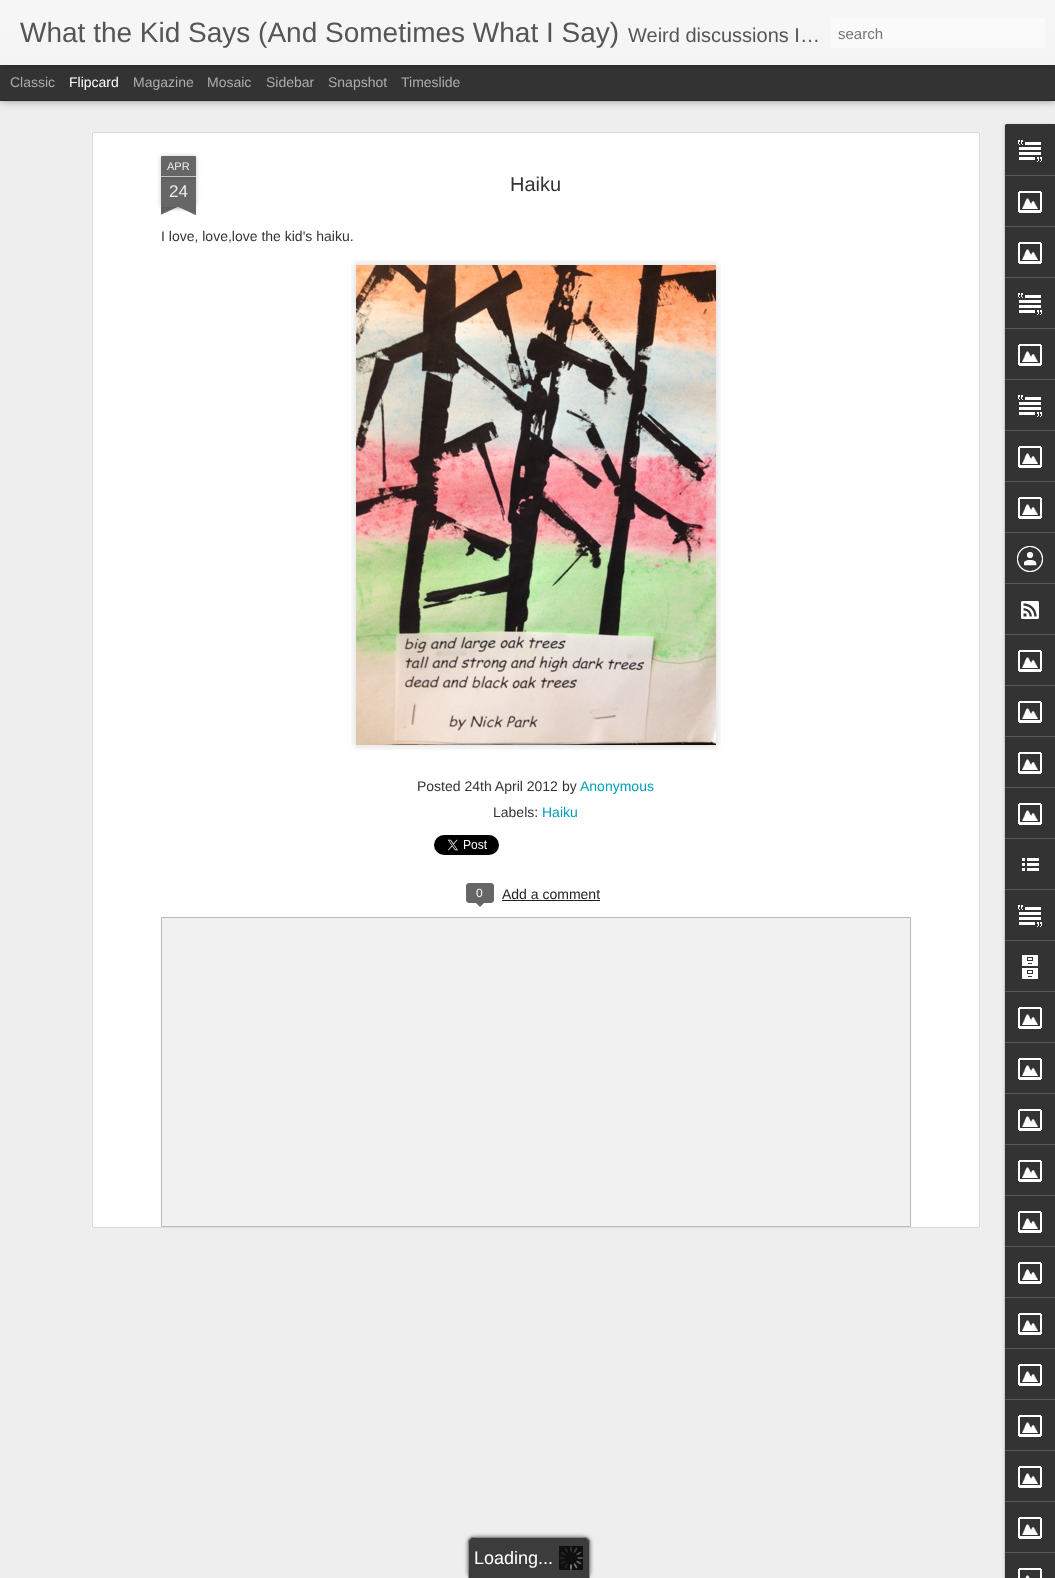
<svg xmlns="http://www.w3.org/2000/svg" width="1055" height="1578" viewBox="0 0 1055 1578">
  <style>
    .t1 { font: 28px Liberation Sans; fill: #555; }
    .t2 { font: 20px Liberation Sans; fill: #555; }
    .t3 { font: 15px Liberation Sans; fill: #757575; }
    .t4 { font: 14px Liberation Sans; fill: #adadad; }
    .t5 { font: 14px Liberation Sans; fill: #fff; }
    .t6 { font: 11px Liberation Sans; fill: #eee; }
    .t7 { font: 17px Liberation Sans; fill: #eee; }
    .t8 { font: 20px Liberation Sans; fill: #333; }
    .t9 { font: 14px Liberation Sans; fill: #333; }
    .t10 { font: 14px Liberation Sans; fill: #009eb8; }
    .t11 { font: 12px Liberation Sans; fill: #fff; }
    .t12 { font: 14px Liberation Sans; fill: #222; }
    .t13 { font: 18px Liberation Sans; fill: #fff; }
  </style>
  <defs>
    <linearGradient id="g1" gradientUnits="userSpaceOnUse" x1="0" y1="0" x2="0" y2="65"><stop offset="0" stop-color="#f7f7f7"/><stop offset="1" stop-color="#f4f4f4"/></linearGradient>
    <clipPath id="clip1"><rect x="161" y="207" width="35" height="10"/></clipPath>
    <clipPath id="clip2"><rect x="161" y="207" width="35" height="10"/></clipPath>
  </defs>
  <rect width="100%" height="100%" fill="#333"/>
  <rect x="0" y="101" width="1055" height="1477" fill="#eee"/>
  <rect x="0" y="65" width="1055" height="35" fill="#00000080" filter="blur(4px)"/>
  <rect x="0" y="65" width="1055" height="35" fill="#333"/>
  <rect x="0" y="0" width="1055" height="65" fill="#0000004d" filter="blur(2.5px)"/>
  <rect x="0" y="0" width="1055" height="65" fill="url(#g1)"/>
  <text x="20" y="42" class="t1">What the Kid Says (And Sometimes What I Say)</text>
  <text x="628" y="42" class="t2">Weird discussions I…</text>
  <rect x="831" y="18" width="214" height="30" rx="3" fill="#fafafa"/>
  <text x="838" y="39" class="t3">search</text>
  <text x="10" y="87" class="t4">Classic</text>
  <text x="69" y="87" class="t5">Flipcard</text>
  <text x="133" y="87" class="t4">Magazine</text>
  <text x="207" y="87" class="t4">Mosaic</text>
  <text x="266" y="87" class="t4">Sidebar</text>
  <text x="328" y="87" class="t4">Snapshot</text>
  <text x="401" y="87" class="t4">Timeslide</text>
  <rect x="91" y="131" width="890" height="1098" fill="#fff"/>
  <image x="91" y="131" width="890" height="1098" href="images/1.png"/>
  <rect x="161" y="177" width="35" height="30" fill="#00000033" filter="blur(2.5px)"/>
  <rect x="161" y="177" width="35" height="30" fill="#666"/>
  <rect x="161" y="156" width="35" height="21" rx="1" fill="#00000033" filter="blur(2.5px)"/>
  <path d="M162 156H195C195.5 156 196 156.5 196 157V177H161V157C161 156.5 161.5 156 162 156Z" fill="#666"/>
  <rect x="161" y="176" width="35" height="1" fill="#c2c2c2"/>
  <text x="167" y="170" class="t6">APR</text>
  <text x="169" y="197" class="t7">24</text>
  <g clip-path="url(#clip1)">
    <rect x="152" y="197" width="50" height="10" fill="#00000033" filter="blur(2.5px)"/>
  </g>
  <g clip-path="url(#clip2)">
    <path d="M152 208L197 187L201 196L156 217Z" fill="#666"/>
  </g>
  <g clip-path="url(#clip1)">
    <rect x="155" y="197" width="50" height="10" fill="#00000033" filter="blur(2.5px)"/>
  </g>
  <g clip-path="url(#clip2)">
    <path d="M159 187L204 208L200 217L155 196Z" fill="#666"/>
  </g>
  <text x="510" y="191" class="t8">Haiku</text>
  <text x="161" y="241" class="t9">I love, love,love the kid's haiku.</text>
  <image x="351" y="260" width="370" height="490" href="images/2.png"/>
  <text x="417" y="791" class="t9">Posted 24th April 2012</text>
  <text x="562" y="791" class="t9">by</text>
  <text x="580" y="791" class="t10">Anonymous</text>
  <text x="493" y="817" class="t9">Labels:</text>
  <text x="542" y="817" class="t10">Haiku</text>
  <image x="434" y="835" width="65" height="20" href="images/3.png"/>
  <rect x="466.5" y="883.5" width="27" height="19" rx="2.5" fill="#666" stroke="#666"/>
  <text x="476" y="897" class="t11">0</text>
  <path d="M475 902H485L480 907Z" fill="#666"/>
  <text x="502" y="899" class="t12">Add a comment</text>
  <rect x="502" y="900" width="98" height="1" fill="#222"/>
  <rect x="161.5" y="917.5" width="749" height="309" fill="#f1f1f1" stroke="#bbb"/>
  <rect x="1005" y="125" width="50" height="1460" rx="2" fill="#0000004d" filter="blur(1.5px)"/>
  <path d="M1007 124H1055V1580H1007C1006 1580 1005 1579 1005 1578V126C1005 125 1006 124 1007 124Z" fill="#333"/>
  <path d="M1007 124H1055V175H1005V126C1005 125 1006 124 1007 124Z" fill="#333"/>
  <image x="1018" y="140" width="24" height="22" href="images/4.png"/>
  <rect x="1005" y="175" width="50" height="1" fill="#585858"/>
  <image x="1018" y="191" width="24" height="22" href="images/5.png"/>
  <rect x="1005" y="226" width="50" height="1" fill="#585858"/>
  <image x="1018" y="242" width="24" height="22" href="images/5.png"/>
  <rect x="1005" y="277" width="50" height="1" fill="#585858"/>
  <image x="1018" y="293" width="24" height="22" href="images/4.png"/>
  <rect x="1005" y="328" width="50" height="1" fill="#585858"/>
  <image x="1018" y="344" width="24" height="22" href="images/5.png"/>
  <rect x="1005" y="379" width="50" height="1" fill="#585858"/>
  <image x="1018" y="395" width="24" height="22" href="images/4.png"/>
  <rect x="1005" y="430" width="50" height="1" fill="#585858"/>
  <image x="1018" y="446" width="24" height="22" href="images/5.png"/>
  <rect x="1005" y="481" width="50" height="1" fill="#585858"/>
  <image x="1018" y="497" width="24" height="22" href="images/5.png"/>
  <rect x="1005" y="532" width="50" height="1" fill="#585858"/>
  <image x="1017" y="546" width="26" height="26" href="images/6.png"/>
  <rect x="1005" y="583" width="50" height="1" fill="#585858"/>
  <image x="1021" y="601" width="18" height="18" href="images/7.png"/>
  <rect x="1005" y="634" width="50" height="1" fill="#585858"/>
  <image x="1018" y="650" width="24" height="22" href="images/5.png"/>
  <rect x="1005" y="685" width="50" height="1" fill="#585858"/>
  <image x="1018" y="701" width="24" height="22" href="images/5.png"/>
  <rect x="1005" y="736" width="50" height="1" fill="#585858"/>
  <image x="1018" y="752" width="24" height="22" href="images/5.png"/>
  <rect x="1005" y="787" width="50" height="1" fill="#585858"/>
  <image x="1018" y="803" width="24" height="22" href="images/5.png"/>
  <rect x="1005" y="838" width="50" height="1" fill="#585858"/>
  <image x="1022" y="858" width="17" height="13" href="images/8.png"/>
  <rect x="1005" y="889" width="50" height="1" fill="#585858"/>
  <image x="1018" y="905" width="24" height="22" href="images/4.png"/>
  <rect x="1005" y="940" width="50" height="1" fill="#585858"/>
  <image x="1022" y="955" width="16" height="24" href="images/9.png"/>
  <rect x="1005" y="991" width="50" height="1" fill="#585858"/>
  <image x="1018" y="1007" width="24" height="22" href="images/5.png"/>
  <rect x="1005" y="1042" width="50" height="1" fill="#585858"/>
  <image x="1018" y="1058" width="24" height="22" href="images/5.png"/>
  <rect x="1005" y="1093" width="50" height="1" fill="#585858"/>
  <image x="1018" y="1109" width="24" height="22" href="images/5.png"/>
  <rect x="1005" y="1144" width="50" height="1" fill="#585858"/>
  <image x="1018" y="1160" width="24" height="22" href="images/5.png"/>
  <rect x="1005" y="1195" width="50" height="1" fill="#585858"/>
  <image x="1018" y="1211" width="24" height="22" href="images/5.png"/>
  <rect x="1005" y="1246" width="50" height="1" fill="#585858"/>
  <image x="1018" y="1262" width="24" height="22" href="images/5.png"/>
  <rect x="1005" y="1297" width="50" height="1" fill="#585858"/>
  <image x="1018" y="1313" width="24" height="22" href="images/5.png"/>
  <rect x="1005" y="1348" width="50" height="1" fill="#585858"/>
  <image x="1018" y="1364" width="24" height="22" href="images/5.png"/>
  <rect x="1005" y="1399" width="50" height="1" fill="#585858"/>
  <image x="1018" y="1415" width="24" height="22" href="images/5.png"/>
  <rect x="1005" y="1450" width="50" height="1" fill="#585858"/>
  <image x="1018" y="1466" width="24" height="22" href="images/5.png"/>
  <rect x="1005" y="1501" width="50" height="1" fill="#585858"/>
  <image x="1018" y="1517" width="24" height="22" href="images/5.png"/>
  <rect x="1005" y="1552" width="50" height="1" fill="#585858"/>
  <image x="1018" y="1568" width="24" height="10" href="images/10.png"/>
  <rect x="468" y="1537" width="122" height="41" rx="6" fill="#626262" filter="blur(2px)"/>
  <path d="M474 1537H584C587.5 1537 590 1539.5 590 1543V1578H468V1543C468 1539.5 470.5 1537 474 1537Z" fill="#3c3c3c"/>
  <path d="M474 1537H584C587 1537 590 1540 590 1543V1578H468V1543C468 1540 471 1537 474 1537ZM474 1538H584C587 1538 589 1540 589 1543V1578H469V1543C469 1540 471 1538 474 1538Z" fill="#888" fill-rule="evenodd"/>
  <image x="559" y="1546" width="24" height="24" href="images/11.png"/>
  <text x="474" y="1564" class="t13">Loading...</text>
</svg>
